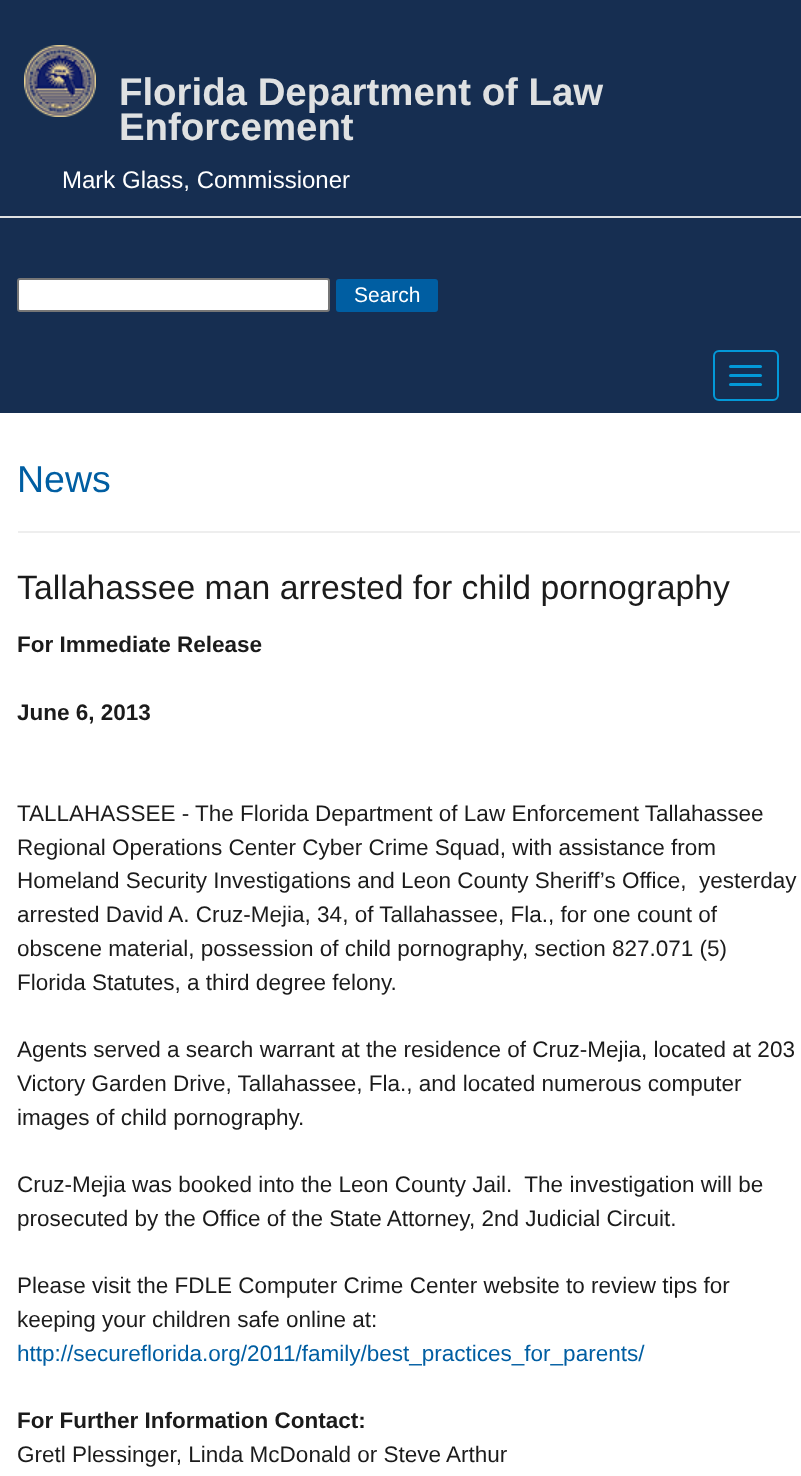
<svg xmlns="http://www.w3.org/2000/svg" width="801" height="1476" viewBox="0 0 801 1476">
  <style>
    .t1 { font: bold 38.4px Liberation Sans; fill: #dfe1e2; }
    .t2 { font: 24px Liberation Sans; fill: #fff; }
    .t3 { font: 21px Liberation Sans; fill: #fff; }
    .t4 { font: 37.5px Liberation Sans; fill: #005ea2; }
    .t5 { font: 33.75px Liberation Sans; fill: #1b1b1b; }
    .t6 { font: bold 22.5px Liberation Sans; fill: #1b1b1b; }
    .t7 { font: 22.5px Liberation Sans; fill: #1b1b1b; }
    .t8 { font: 22.5px Liberation Sans; fill: #005ea2; }
  </style>
  <rect width="100%" height="100%" fill="#fff"/>
  <rect x="0" y="0" width="801" height="216" fill="#162e51"/>
  <rect x="0" y="216" width="801" height="2" fill="#dfe1e2"/>
  <image x="24" y="45" width="72" height="72" href="images/1.png"/>
  <text x="119" y="105" class="t1">Florida Department of Law</text>
  <text x="119" y="140" class="t1">Enforcement</text>
  <text x="62" y="188" class="t2">Mark Glass, Commissioner</text>
  <rect x="0" y="218" width="801" height="195" fill="#162e51"/>
  <rect x="714" y="351" width="64" height="49" rx="5" fill="none" stroke="#0399d8" stroke-width="2"/>
  <rect x="729" y="365" width="33" height="3" rx="1.5" fill="#0399d8"/>
  <rect x="729" y="374" width="33" height="3" rx="1.5" fill="#0399d8"/>
  <rect x="729" y="383" width="33" height="3" rx="1.5" fill="#0399d8"/>
  <rect x="18" y="279" width="311" height="32" rx="2" fill="#fff" stroke="#767676" stroke-width="2"/>
  <rect x="336" y="279" width="102" height="33" rx="3" fill="#005ea2"/>
  <text x="354" y="302" class="t3">Search</text>
  <text x="17" y="492" class="t4">News</text>
  <rect x="18" y="531" width="782" height="2" fill="#eee"/>
  <text x="17" y="599" class="t5">Tallahassee man arrested for child pornography</text>
  <text x="17" y="652" class="t6">For Immediate Release</text>
  <text x="17" y="720" class="t6">June 6, 2013</text>
  <text x="17" y="821" class="t7">TALLAHASSEE - The Florida Department of Law Enforcement Tallahassee</text>
  <text x="17" y="855" class="t7">Regional Operations Center Cyber Crime Squad, with assistance from</text>
  <text x="17" y="888" class="t7" xml:space="preserve">Homeland Security Investigations and Leon County Sheriff’s Office,  yesterday</text>
  <text x="17" y="922" class="t7">arrested David A. Cruz-Mejia, 34, of Tallahassee, Fla., for one count of</text>
  <text x="17" y="956" class="t7">obscene material, possession of child pornography, section 827.071 (5)</text>
  <text x="17" y="990" class="t7">Florida Statutes, a third degree felony.</text>
  <text x="17" y="1057" class="t7">Agents served a search warrant at the residence of Cruz-Mejia, located at 203</text>
  <text x="17" y="1091" class="t7">Victory Garden Drive, Tallahassee, Fla., and located numerous computer</text>
  <text x="17" y="1125" class="t7">images of child pornography.</text>
  <text x="17" y="1192" class="t7" xml:space="preserve">Cruz-Mejia was booked into the Leon County Jail.  The investigation will be</text>
  <text x="17" y="1226" class="t7">prosecuted by the Office of the State Attorney, 2nd Judicial Circuit.</text>
  <text x="17" y="1293" class="t7">Please visit the FDLE Computer Crime Center website to review tips for</text>
  <text x="17" y="1327" class="t7">keeping your children safe online at:</text>
  <text x="17" y="1361" class="t8">http://secureflorida.org/2011/family/best_practices_for_parents/</text>
  <text x="17" y="1428" class="t6">For Further Information Contact:</text>
  <text x="17" y="1462" class="t7">Gretl Plessinger, Linda McDonald or Steve Arthur</text>
</svg>
